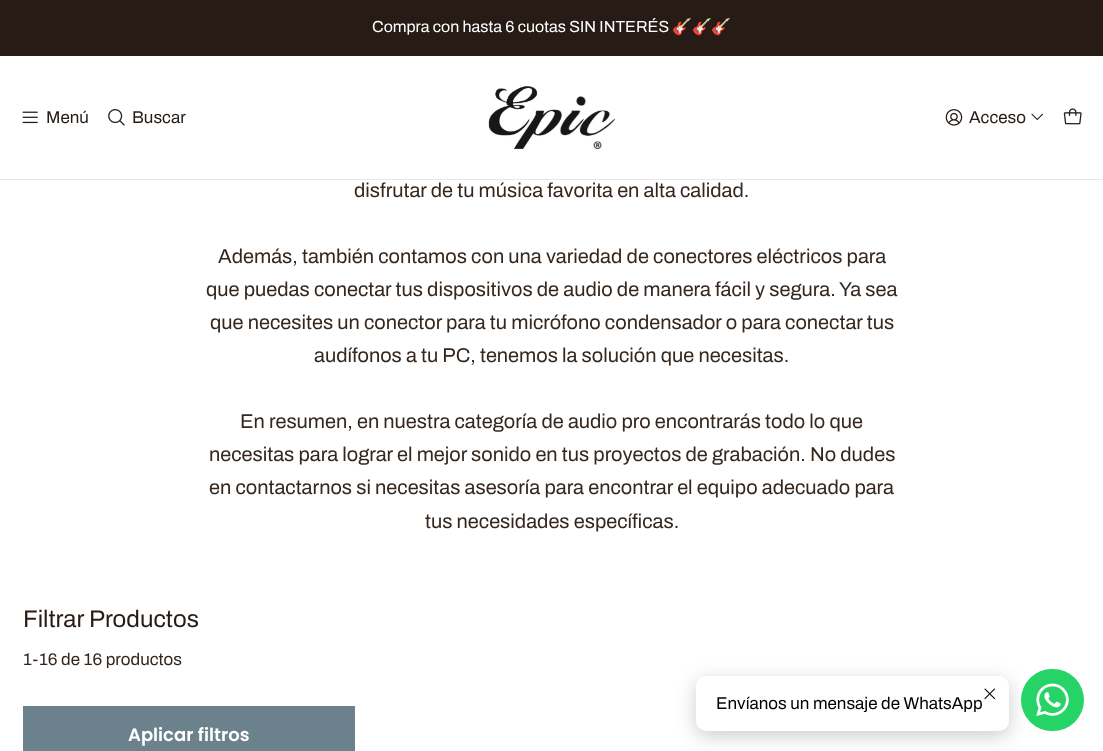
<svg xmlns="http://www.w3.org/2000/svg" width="1103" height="751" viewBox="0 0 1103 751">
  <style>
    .t1 { font: 16px Archivo; fill: #fff; }
    .t2 { font: 16px Noto Color Emoji; fill: #fff; }
    .t3 { font: 17px Archivo; fill: #261c15; }
    .t4 { font: 20px Archivo; fill: #35271d; }
    .t5 { font: 24px Archivo; fill: #261c15; }
    .t6 { font: 17px Archivo; fill: #35271d; }
    .t7 { font: 600 18px Poppins; fill: #fff; }
    .t8 { font: 17px Archivo; fill: #000; }
  </style>
  <rect width="100%" height="100%" fill="#fff"/>
  <rect x="0" y="0" width="1103" height="56" fill="#261c15"/>
  <text x="372" y="32" class="t1">Compra con hasta 6 cuotas SIN INTERÉS</text>
  <text x="672" y="32" class="t2">🎸🎸🎸</text>
  <rect x="0" y="179" width="1103" height="1" fill="#e9e8e8"/>
  <image x="22" y="111" width="16" height="13" href="images/1.png"/>
  <text x="46" y="123" class="t3">Menú</text>
  <image x="108" y="109" width="17" height="17" href="images/2.png"/>
  <text x="132" y="123" class="t3">Buscar</text>
  <image x="488" y="86" width="128" height="63" href="images/3.png"/>
  <image x="945" y="109" width="18" height="17" href="images/4.png"/>
  <text x="969" y="123" class="t3">Acceso</text>
  <image x="1031" y="113" width="13" height="7" href="images/5.png"/>
  <image x="1063" y="108" width="19" height="17" href="images/6.png"/>
  <text x="354" y="197" class="t4">disfrutar de tu música favorita en alta calidad.</text>
  <text x="218" y="263" class="t4">Además, también contamos con una variedad de conectores eléctricos para</text>
  <text x="206" y="296" class="t4">que puedas conectar tus dispositivos de audio de manera fácil y segura. Ya sea</text>
  <text x="210" y="329" class="t4">que necesites un conector para tu micrófono condensador o para conectar tus</text>
  <text x="314" y="362" class="t4">audífonos a tu PC, tenemos la solución que necesitas.</text>
  <text x="240" y="428" class="t4">En resumen, en nuestra categoría de audio pro encontrarás todo lo que</text>
  <text x="209" y="461" class="t4">necesitas para lograr el mejor sonido en tus proyectos de grabación. No dudes</text>
  <text x="209" y="494" class="t4">en contactarnos si necesitas asesoría para encontrar el equipo adecuado para</text>
  <text x="425" y="528" class="t4">tus necesidades específicas.</text>
  <text x="23" y="627" class="t5">Filtrar Productos</text>
  <text x="23" y="665" class="t6">1-16 de 16 productos</text>
  <rect x="23" y="706" width="332" height="45" fill="#6b818c"/>
  <text x="128" y="741" class="t7">Aplicar filtros</text>
  <rect x="696" y="681" width="313" height="55" rx="10" fill="#00000033" filter="blur(9.5px)"/>
  <rect x="696" y="676" width="313" height="55" rx="10" fill="#fff"/>
  <image x="984" y="688" width="11" height="12" href="images/7.png"/>
  <text x="716" y="709" class="t8">Envíanos un mensaje de WhatsApp</text>
  <rect x="1021" y="669" width="63" height="62" rx="31" fill="#25d366"/>
  <image x="1036" y="683" width="33" height="33" href="images/8.png"/>
</svg>
